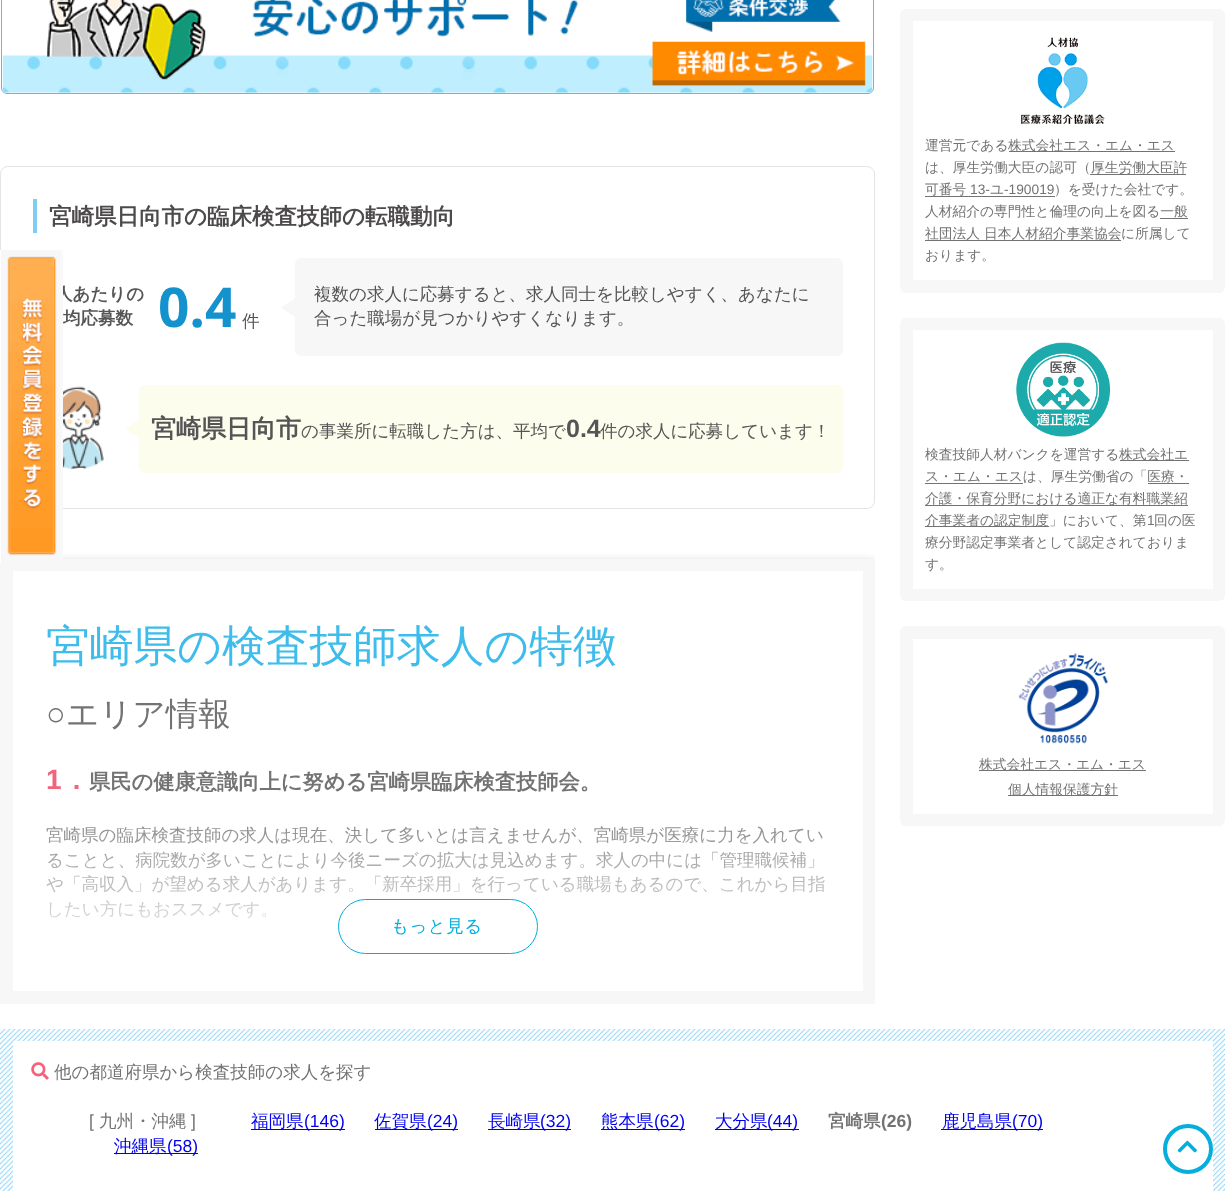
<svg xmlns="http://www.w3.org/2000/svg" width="1225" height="1191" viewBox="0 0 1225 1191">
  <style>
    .t1 { font: bold 17.5px WenQuanYi Zen Hei; fill: #555; }
    .t2 { font: bold 22.5px WenQuanYi Zen Hei; fill: #4c4a4a; }
    .t3 { font: bold 55px Noto Sans; fill: #1492ce; }
    .t4 { font: 500 17.5px WenQuanYi Zen Hei; fill: #555; }
    .t5 { font: bold 25px WenQuanYi Zen Hei; fill: #555; }
    .t6 { font: bold 25px Liberation Sans; fill: #555; }
    .t7 { font: 500 43.75px WenQuanYi Zen Hei; fill: #3ebcec; }
    .t8 { font: 32.5px Liberation Sans; fill: #737373; }
    .t9 { font: 500 32.5px WenQuanYi Zen Hei; fill: #737373; }
    .t10 { font: bold 28px Liberation Sans; fill: #f2647b; }
    .t11 { font: bold 28px WenQuanYi Zen Hei; fill: #f2647b; }
    .t12 { font: bold 21.25px WenQuanYi Zen Hei; fill: #737373; }
    .t13 { font: 500 17.5px WenQuanYi Zen Hei; fill: #737373; }
    .t14 { font: 500 17.5px WenQuanYi Zen Hei; letter-spacing: 0.5px; fill: #02aedc; }
    .t15 { font: 500 13.75px WenQuanYi Zen Hei; fill: #737373; }
    .t16 { font: 13.75px Liberation Sans; fill: #737373; }
    .t17 { font: 17.5px Liberation Sans; fill: #737373; }
    .t18 { font: 500 17.5px WenQuanYi Zen Hei; fill: #00e; }
    .t19 { font: 17.5px Liberation Sans; fill: #00e; }
    .t20 { font: bold 17.5px WenQuanYi Zen Hei; fill: #737373; }
    .t21 { font: bold 17.5px Liberation Sans; fill: #737373; }
  </style>
  <defs>
    <clipPath id="clip1"><rect x="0" y="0" width="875" height="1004"/></clipPath>
    <linearGradient id="g1" gradientUnits="userSpaceOnUse" x1="438" y1="791" x2="438" y2="966"><stop offset="0" stop-color="#fff" stop-opacity="0"/><stop offset="1" stop-color="#fff"/></linearGradient>
  </defs>
  <rect width="100%" height="100%" fill="#fff"/>
  <rect x="0.5" y="166.5" width="874" height="342" rx="7.5" fill="none" stroke="#e4e4e4"/>
  <text x="55" y="300" class="t1">人あたりの</text>
  <text x="63" y="324" class="t1">均応募数</text>
  <g clip-path="url(#clip1)">
    <rect x="1" y="561" width="873" height="443" fill="#ccc" filter="blur(4px)"/>
  </g>
  <rect x="0" y="559" width="875" height="445" fill="#f7f7f7"/>
  <rect x="62" y="250" width="1" height="313" fill="#efefef"/>
  <image x="0" y="250" width="63" height="313" href="images/1.png"/>
  <rect x="1.5" y="-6.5" width="872" height="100" rx="5.5" fill="none" stroke="#7bade2"/>
  <image x="2" y="0" width="871" height="93" href="images/2.png"/>
  <rect x="33" y="199" width="4" height="34" fill="#7ecef4"/>
  <text x="49" y="224" class="t2">宮崎県日向市の臨床検査技師の転職動向</text>
  <text x="158" y="327" class="t3">0.4</text>
  <text x="242" y="327" class="t4">件</text>
  <rect x="295" y="258" width="548" height="98" rx="6" fill="#f7f7f7"/>
  <text x="314" y="300" class="t4">複数の求人に応募すると、求人同士を比較しやすく、あなたに</text>
  <path d="M296 297.5V317.5L281 307.5Z" fill="#f7f7f7"/>
  <text x="314" y="324" class="t4">合った職場が見つかりやすくなります。</text>
  <image x="63" y="386" width="41" height="83" href="images/3.png"/>
  <rect x="139" y="385" width="704" height="88" rx="6" fill="#fdfded"/>
  <path d="M140 419V439L125 429Z" fill="#fdfded"/>
  <text x="151" y="437" class="t5">宮崎県日向市</text>
  <text x="301" y="437" class="t4">の事業所に転職した方は、平均で</text>
  <text x="566" y="437" class="t6">0.4</text>
  <text x="600" y="437" class="t4">件の求人に応募しています！</text>
  <rect x="13" y="571" width="850" height="420" fill="#fff"/>
  <text x="46" y="661" class="t7">宮崎県の検査技師求人の特徴</text>
  <text x="46" y="725" class="t8">○</text>
  <text x="66" y="725" class="t9">エリア情報</text>
  <text x="46" y="789" class="t10">1</text>
  <text x="62" y="789" class="t11">．</text>
  <text x="89" y="789" class="t12">県民の健康意識向上に努める宮崎県臨床検査技師会。</text>
  <text x="46" y="841" class="t13">宮崎県の臨床検査技師の求人は現在、決して多いとは言えませんが、宮崎県が医療に力を入れてい</text>
  <text x="46" y="866" class="t13">ることと、病院数が多いことにより今後ニーズの拡大は見込めます。求人の中には「管理職候補」</text>
  <text x="46" y="890" class="t13">や「高収入」が望める求人があります。「新卒採用」を行っている職場もあるので、これから目指</text>
  <text x="46" y="915" class="t13">したい方にもおススメです。</text>
  <rect x="46" y="826" width="779" height="93" fill="url(#g1)"/>
  <rect x="338.5" y="899.5" width="199" height="54" rx="27" fill="none" stroke="#02aedc"/>
  <text x="391" y="932" class="t14">もっと見る</text>
  <rect x="900" y="9" width="325" height="284" rx="6" fill="#f7f7f7"/>
  <rect x="913" y="21" width="300" height="259" fill="#fff"/>
  <image x="1021" y="37" width="84" height="87" href="images/4.png"/>
  <text x="925" y="150" class="t15">運営元である</text>
  <rect x="1009" y="151" width="166" height="1" fill="#737373"/>
  <text x="1008" y="150" class="t15">株式会社エス・エム・エス</text>
  <text x="925" y="172" class="t15">は、厚生労働大臣の認可（</text>
  <rect x="1090" y="174" width="96" height="1" fill="#737373"/>
  <text x="1091" y="172" class="t15">厚生労働大臣許</text>
  <text x="925" y="194" class="t15">可番号</text>
  <text x="970" y="194" class="t16">13-</text>
  <rect x="925" y="196" width="130" height="1" fill="#737373"/>
  <text x="990" y="194" class="t15">ユ</text>
  <text x="1004" y="194" class="t16">-190019</text>
  <text x="1054" y="194" class="t15">）を受けた会社です。</text>
  <text x="925" y="216" class="t15">人材紹介の専門性と倫理の向上を図る一般</text>
  <rect x="925" y="240" width="196" height="1" fill="#737373"/>
  <text x="925" y="238" class="t15">社団法人 日本人材紹介事業協会</text>
  <rect x="1160" y="218" width="28" height="1" fill="#737373"/>
  <text x="1121" y="238" class="t15">に所属して</text>
  <text x="925" y="260" class="t15">おります。</text>
  <rect x="900" y="318" width="325" height="283" rx="6" fill="#f7f7f7"/>
  <rect x="913" y="330" width="300" height="259" fill="#fff"/>
  <image x="1016" y="342" width="94" height="95" href="images/5.png"/>
  <text x="925" y="459" class="t15">検査技師人材バンクを運営する</text>
  <rect x="1120" y="460" width="69" height="1" fill="#737373"/>
  <text x="1119" y="459" class="t15">株式会社エ</text>
  <rect x="925" y="483" width="98" height="1" fill="#737373"/>
  <text x="925" y="481" class="t15">ス・エム・エスは、厚生労働省の「医療・</text>
  <rect x="925" y="505" width="263" height="1" fill="#737373"/>
  <text x="925" y="503" class="t15">介護・保育分野における適正な有料職業紹</text>
  <rect x="1148" y="483" width="41" height="1" fill="#737373"/>
  <rect x="925" y="526" width="124" height="1" fill="#737373"/>
  <text x="925" y="525" class="t15">介事業者の認定制度」において、第</text>
  <text x="1147" y="525" class="t16">1</text>
  <text x="1154" y="525" class="t15">回の医</text>
  <text x="925" y="547" class="t15">療分野認定事業者として認定されておりま</text>
  <text x="925" y="569" class="t15">す。</text>
  <rect x="900" y="626" width="325" height="200" rx="6" fill="#f7f7f7"/>
  <rect x="913" y="639" width="300" height="175" fill="#fff"/>
  <image x="1018" y="653" width="91" height="91" href="images/6.png"/>
  <rect x="979" y="770" width="167" height="1" fill="#737373"/>
  <text x="979" y="769" class="t15">株式会社エス・エム・エス</text>
  <rect x="1008" y="795" width="110" height="1" fill="#737373"/>
  <text x="1008" y="794" class="t15">個人情報保護方針</text>
  <image x="0" y="1029" width="1225" height="162" href="images/7.png"/>
  <rect x="13" y="1041" width="1200" height="150" fill="#fff"/>
  <image x="31" y="1062" width="18" height="18" href="images/8.png"/>
  <text x="54" y="1078" class="t13">他の都道府県から検査技師の求人を探す</text>
  <text x="89" y="1127" class="t17">[</text>
  <text x="99" y="1127" class="t13">九州・沖縄</text>
  <text x="191" y="1127" class="t17">]</text>
  <rect x="251" y="1129" width="94" height="1" fill="#00e"/>
  <text x="251" y="1127" class="t18">福岡県</text>
  <text x="304" y="1127" class="t19">(146)</text>
  <rect x="375" y="1129" width="83" height="1" fill="#00e"/>
  <text x="374" y="1127" class="t18">佐賀県</text>
  <text x="427" y="1127" class="t19">(24)</text>
  <rect x="488" y="1129" width="83" height="1" fill="#00e"/>
  <text x="488" y="1127" class="t18">長崎県</text>
  <text x="540" y="1127" class="t19">(32)</text>
  <rect x="601" y="1129" width="84" height="1" fill="#00e"/>
  <text x="601" y="1127" class="t18">熊本県</text>
  <text x="654" y="1127" class="t19">(62)</text>
  <rect x="715" y="1129" width="84" height="1" fill="#00e"/>
  <text x="715" y="1127" class="t18">大分県</text>
  <text x="767" y="1127" class="t19">(44)</text>
  <text x="828" y="1127" class="t20">宮崎県</text>
  <text x="881" y="1127" class="t21">(26)</text>
  <rect x="941" y="1129" width="102" height="1" fill="#00e"/>
  <text x="942" y="1127" class="t18">鹿児島県</text>
  <text x="1012" y="1127" class="t19">(70)</text>
  <rect x="114" y="1153" width="84" height="1" fill="#00e"/>
  <text x="114" y="1152" class="t18">沖縄県</text>
  <text x="167" y="1152" class="t19">(58)</text>
  <circle cx="1188" cy="1149" r="23" fill="none" stroke="#06aedc" stroke-width="4"/>
  <image x="1177" y="1140" width="20" height="13" href="images/9.png"/>
</svg>
